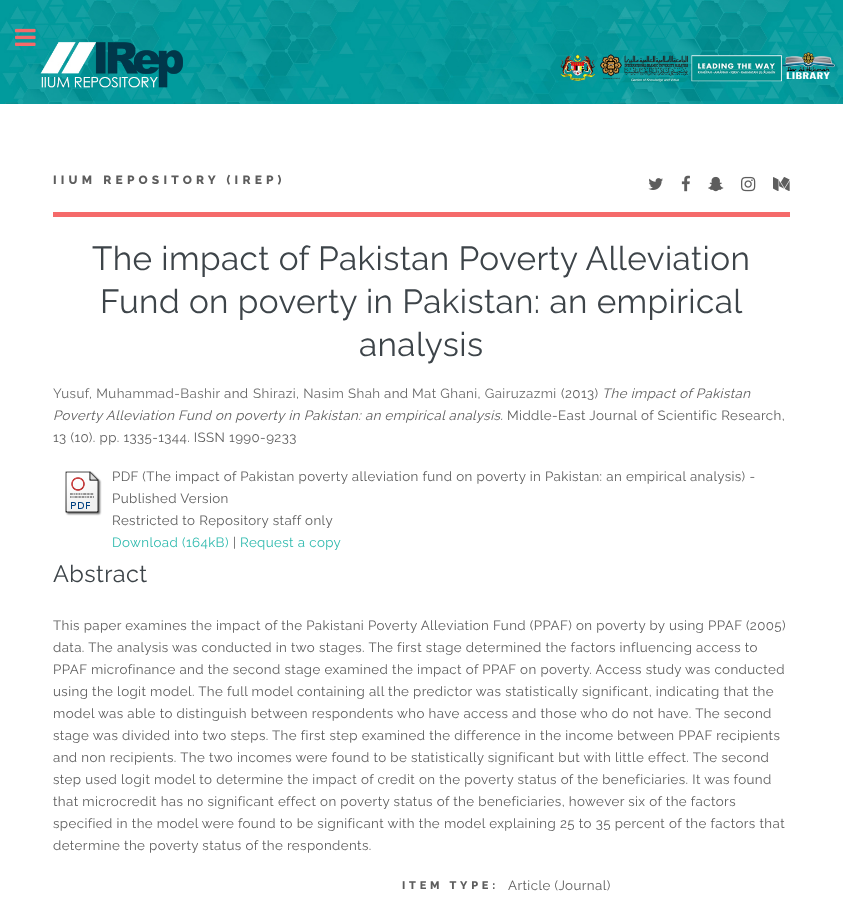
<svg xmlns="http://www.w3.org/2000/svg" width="843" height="903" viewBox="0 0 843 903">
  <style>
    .t1 { font: 800 12px Raleway; letter-spacing: 4.2px; fill: #5d5d5d; }
    .t2 { font: 33.3px Raleway; letter-spacing: 0.4px; fill: #3d4449; }
    .t3 { font: 13.33px Raleway; letter-spacing: 0.4px; fill: #696969; }
    .t4 { font: 13.33px Raleway; letter-spacing: 0.4px; fill: #5d5d5d; }
    .t5 { font: italic 13.33px Raleway; letter-spacing: 0.4px; fill: #5d5d5d; }
    .t6 { font: 13.33px Raleway; letter-spacing: 0.4px; fill: #2ebaae; }
    .t7 { font: 23.5px Raleway; letter-spacing: 0.4px; fill: #3d4449; }
    .t8 { font: 800 11px Raleway; letter-spacing: 3.8px; fill: #5d5d5d; }
  </style>
  <rect width="100%" height="100%" fill="#fff"/>
  <image x="0" y="0" width="843" height="104" href="images/1.png"/>
  <image x="15" y="28" width="21" height="18" href="images/2.png"/>
  <rect x="53" y="212" width="737" height="5" fill="#f56a6a"/>
  <text x="53" y="184" class="t1">IIUM REPOSITORY (IREP)</text>
  <image x="648" y="178" width="15" height="12" href="images/3.png"/>
  <image x="681" y="175" width="9" height="17" href="images/4.png"/>
  <image x="708" y="176" width="16" height="16" href="images/5.png"/>
  <image x="741" y="176" width="15" height="16" href="images/6.png"/>
  <image x="773" y="177" width="17" height="14" href="images/7.png"/>
  <text x="92" y="270" class="t2">The impact of Pakistan Poverty Alleviation</text>
  <text x="100" y="313" class="t2">Fund on poverty in Pakistan: an empirical</text>
  <text x="359" y="356" class="t2">analysis</text>
  <text x="53" y="398" class="t3">Yusuf, Muhammad-Bashir</text>
  <text x="224" y="398" class="t4">and</text>
  <text x="253" y="398" class="t3">Shirazi, Nasim Shah</text>
  <text x="384" y="398" class="t4">and</text>
  <text x="412" y="398" class="t3">Mat Ghani, Gairuzazmi</text>
  <text x="561" y="398" class="t4">(2013)</text>
  <text x="602" y="398" class="t5">The impact of Pakistan</text>
  <text x="53" y="420" class="t5">Poverty Alleviation Fund on poverty in Pakistan: an empirical analysis.</text>
  <text x="507" y="420" class="t4">Middle-East Journal of Scientific Research,</text>
  <text x="53" y="442" class="t4">13 (10). pp. 1335-1344. ISSN 1990-9233</text>
  <image x="65" y="471" width="37" height="45" href="images/8.png"/>
  <text x="112" y="481" class="t4">PDF (The impact of Pakistan poverty alleviation fund on poverty in Pakistan: an empirical analysis) -</text>
  <text x="112" y="503" class="t4">Published Version</text>
  <text x="112" y="525" class="t4">Restricted to Repository staff only</text>
  <text x="112" y="547" class="t6">Download (164kB)</text>
  <text x="233" y="547" class="t4">|</text>
  <text x="240" y="547" class="t6">Request a copy</text>
  <text x="53" y="582" class="t7">Abstract</text>
  <text x="53" y="630" class="t4">This paper examines the impact of the Pakistani Poverty Alleviation Fund (PPAF) on poverty by using PPAF (2005)</text>
  <text x="53" y="652" class="t4">data. The analysis was conducted in two stages. The first stage determined the factors influencing access to</text>
  <text x="53" y="674" class="t4">PPAF microfinance and the second stage examined the impact of PPAF on poverty. Access study was conducted</text>
  <text x="53" y="696" class="t4">using the logit model. The full model containing all the predictor was statistically significant, indicating that the</text>
  <text x="53" y="718" class="t4">model was able to distinguish between respondents who have access and those who do not have. The second</text>
  <text x="53" y="740" class="t4">stage was divided into two steps. The first step examined the difference in the income between PPAF recipients</text>
  <text x="53" y="762" class="t4">and non recipients. The two incomes were found to be statistically significant but with little effect. The second</text>
  <text x="53" y="784" class="t4">step used logit model to determine the impact of credit on the poverty status of the beneficiaries. It was found</text>
  <text x="53" y="806" class="t4">that microcredit has no significant effect on poverty status of the beneficiaries, however six of the factors</text>
  <text x="53" y="828" class="t4">specified in the model were found to be significant with the model explaining 25 to 35 percent of the factors that</text>
  <text x="53" y="850" class="t4">determine the poverty status of the respondents.</text>
  <text x="402" y="889" class="t8">ITEM TYPE:</text>
  <text x="508" y="890" class="t4">Article (Journal)</text>
</svg>
